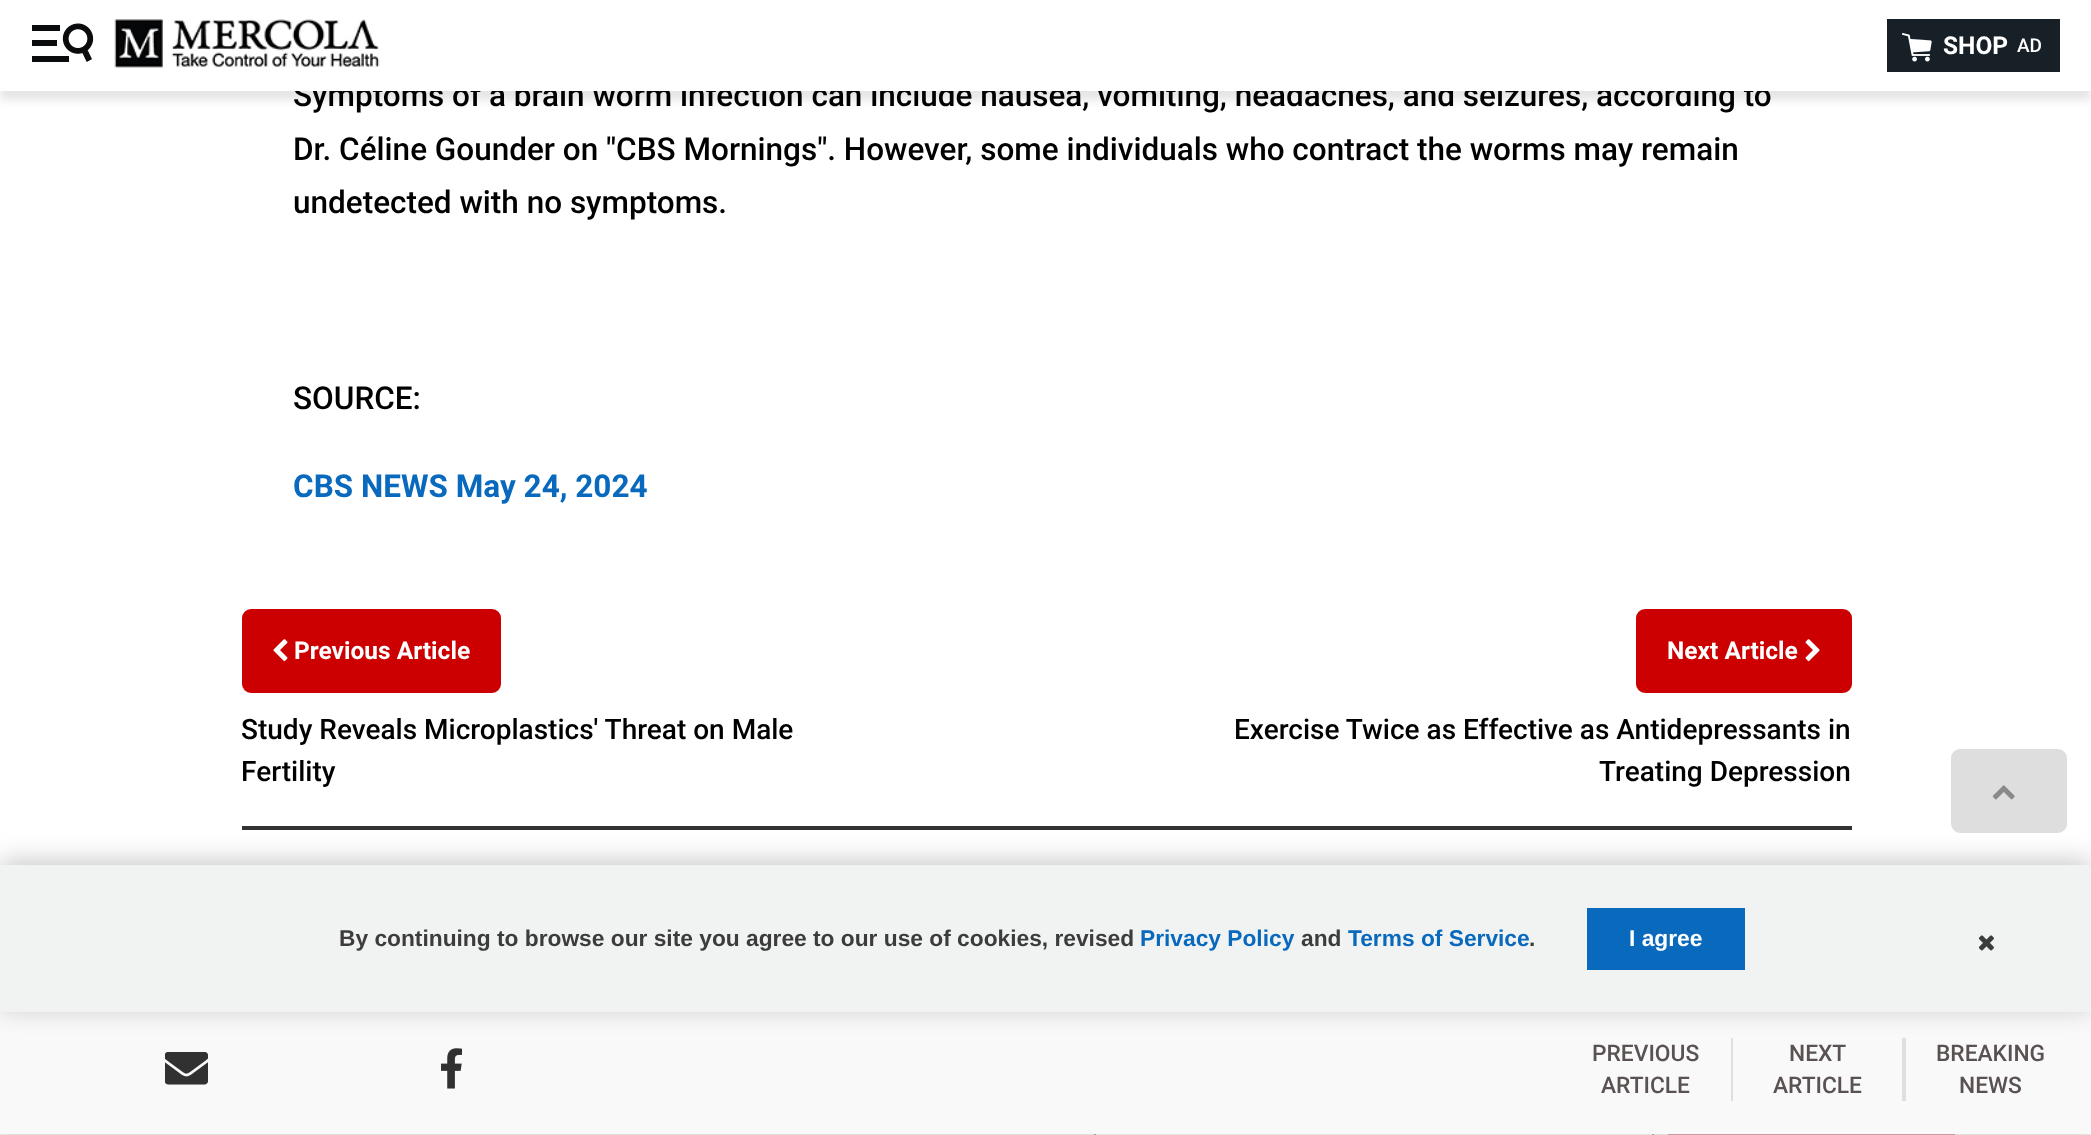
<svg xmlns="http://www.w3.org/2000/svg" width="2091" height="1135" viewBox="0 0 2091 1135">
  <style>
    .t1 { font: 500 31.5px Roboto; fill: #000; }
    .t2 { font: bold 24.5px Roboto; fill: #fff; }
    .t3 { font: 500 19px Roboto; fill: #fff; }
    .t4 { font: bold 31.5px Roboto; fill: #0869bd; }
    .t5 { font: 500 28px Roboto; fill: #000; }
    .t6 { font: bold 22.75px Liberation Sans; fill: #3c3c3c; }
    .t7 { font: bold 22.75px Liberation Sans; fill: #0869bd; }
    .t8 { font: bold 22.75px Liberation Sans; fill: #fff; }
    .t9 { font: 500 22.75px Roboto; fill: #5a5252; }
  </style>
  <rect width="100%" height="100%" fill="#fff"/>
  <rect x="0" y="9" width="2091" height="91" fill="#0000001a" filter="blur(4.5px)"/>
  <text x="293" y="106" class="t1">Symptoms of a brain worm infection can include nausea, vomiting, headaches, and seizures, according to</text>
  <rect x="0" y="3" width="2091" height="88" fill="#fff"/>
  <image x="32" y="23" width="62" height="39" href="images/1.png"/>
  <image x="114" y="19" width="266" height="49" href="images/2.png"/>
  <rect x="1887" y="19" width="173" height="53" fill="#172026"/>
  <image x="1901" y="33" width="31" height="29" href="images/3.png"/>
  <text x="1943" y="54" class="t2">SHOP</text>
  <text x="2017" y="52" class="t3">AD</text>
  <text x="293" y="160" class="t1">Dr. Céline Gounder on "CBS Mornings". However, some individuals who contract the worms may remain</text>
  <text x="293" y="213" class="t1">undetected with no symptoms.</text>
  <text x="293" y="409" class="t1">SOURCE:</text>
  <text x="293" y="497" class="t4">CBS NEWS May 24, 2024</text>
  <rect x="242" y="826" width="1610" height="4" fill="#333"/>
  <rect x="243" y="610" width="257" height="82" rx="8" fill="#c00" stroke="#c00" stroke-width="2"/>
  <image x="273" y="639" width="15" height="23" href="images/4.png"/>
  <text x="294" y="659" class="t2">Previous Article</text>
  <text x="241" y="739" class="t5">Study Reveals Microplastics' Threat on Male</text>
  <text x="241" y="781" class="t5">Fertility</text>
  <rect x="1637" y="610" width="214" height="82" rx="8" fill="#c00" stroke="#c00" stroke-width="2"/>
  <text x="1667" y="659" class="t2">Next Article</text>
  <image x="1805" y="639" width="15" height="23" href="images/5.png"/>
  <text x="1234" y="739" class="t5">Exercise Twice as Effective as Antidepressants in</text>
  <text x="1599" y="781" class="t5">Treating Depression</text>
  <rect x="1952" y="750" width="114" height="82" rx="8" fill="#dedede" stroke="#dedede" stroke-width="2"/>
  <image x="1992" y="785" width="23" height="15" href="images/6.png"/>
  <rect x="0" y="1134" width="2091" height="1" fill="#f2f2f2"/>
  <rect x="1096" y="1134" width="556" height="1" fill="#fff"/>
  <rect x="1095" y="1076" width="558" height="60" fill="none" stroke="#2d2d2d" stroke-width="2"/>
  <rect x="1668" y="1134" width="287" height="1" fill="#af1a31"/>
  <rect x="-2" y="1013" width="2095" height="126" fill="#d5d5d5" filter="blur(9px)"/>
  <rect x="0" y="1012" width="2091" height="122" fill="#f9f9f9"/>
  <rect x="1731" y="1038" width="2" height="63" fill="#dfdfdf"/>
  <rect x="1902" y="1038" width="4" height="63" fill="#dfdfdf"/>
  <rect x="0" y="861" width="2091" height="147" fill="#92909080" filter="blur(13px)"/>
  <rect x="0" y="865" width="2091" height="147" fill="#f1f2f2"/>
  <text x="339" y="946" class="t6">By continuing to browse our site you agree to our use of cookies, revised</text>
  <text x="1140" y="946" class="t7">Privacy Policy</text>
  <text x="1301" y="946" class="t6">and</text>
  <text x="1348" y="946" class="t7">Terms of Service</text>
  <text x="1529" y="946" class="t6">.</text>
  <rect x="1587" y="908" width="158" height="62" fill="#0869bd"/>
  <text x="1629" y="946" class="t8">I agree</text>
  <image x="1978" y="935" width="16" height="16" href="images/7.png"/>
  <image x="165" y="1052" width="43" height="33" href="images/8.png"/>
  <image x="441" y="1048" width="21" height="41" href="images/9.png"/>
  <text x="1592" y="1061" class="t9">PREVIOUS</text>
  <text x="1601" y="1093" class="t9">ARTICLE</text>
  <text x="1789" y="1061" class="t9">NEXT</text>
  <text x="1773" y="1093" class="t9">ARTICLE</text>
  <text x="1936" y="1061" class="t9">BREAKING</text>
  <text x="1959" y="1093" class="t9">NEWS</text>
</svg>
